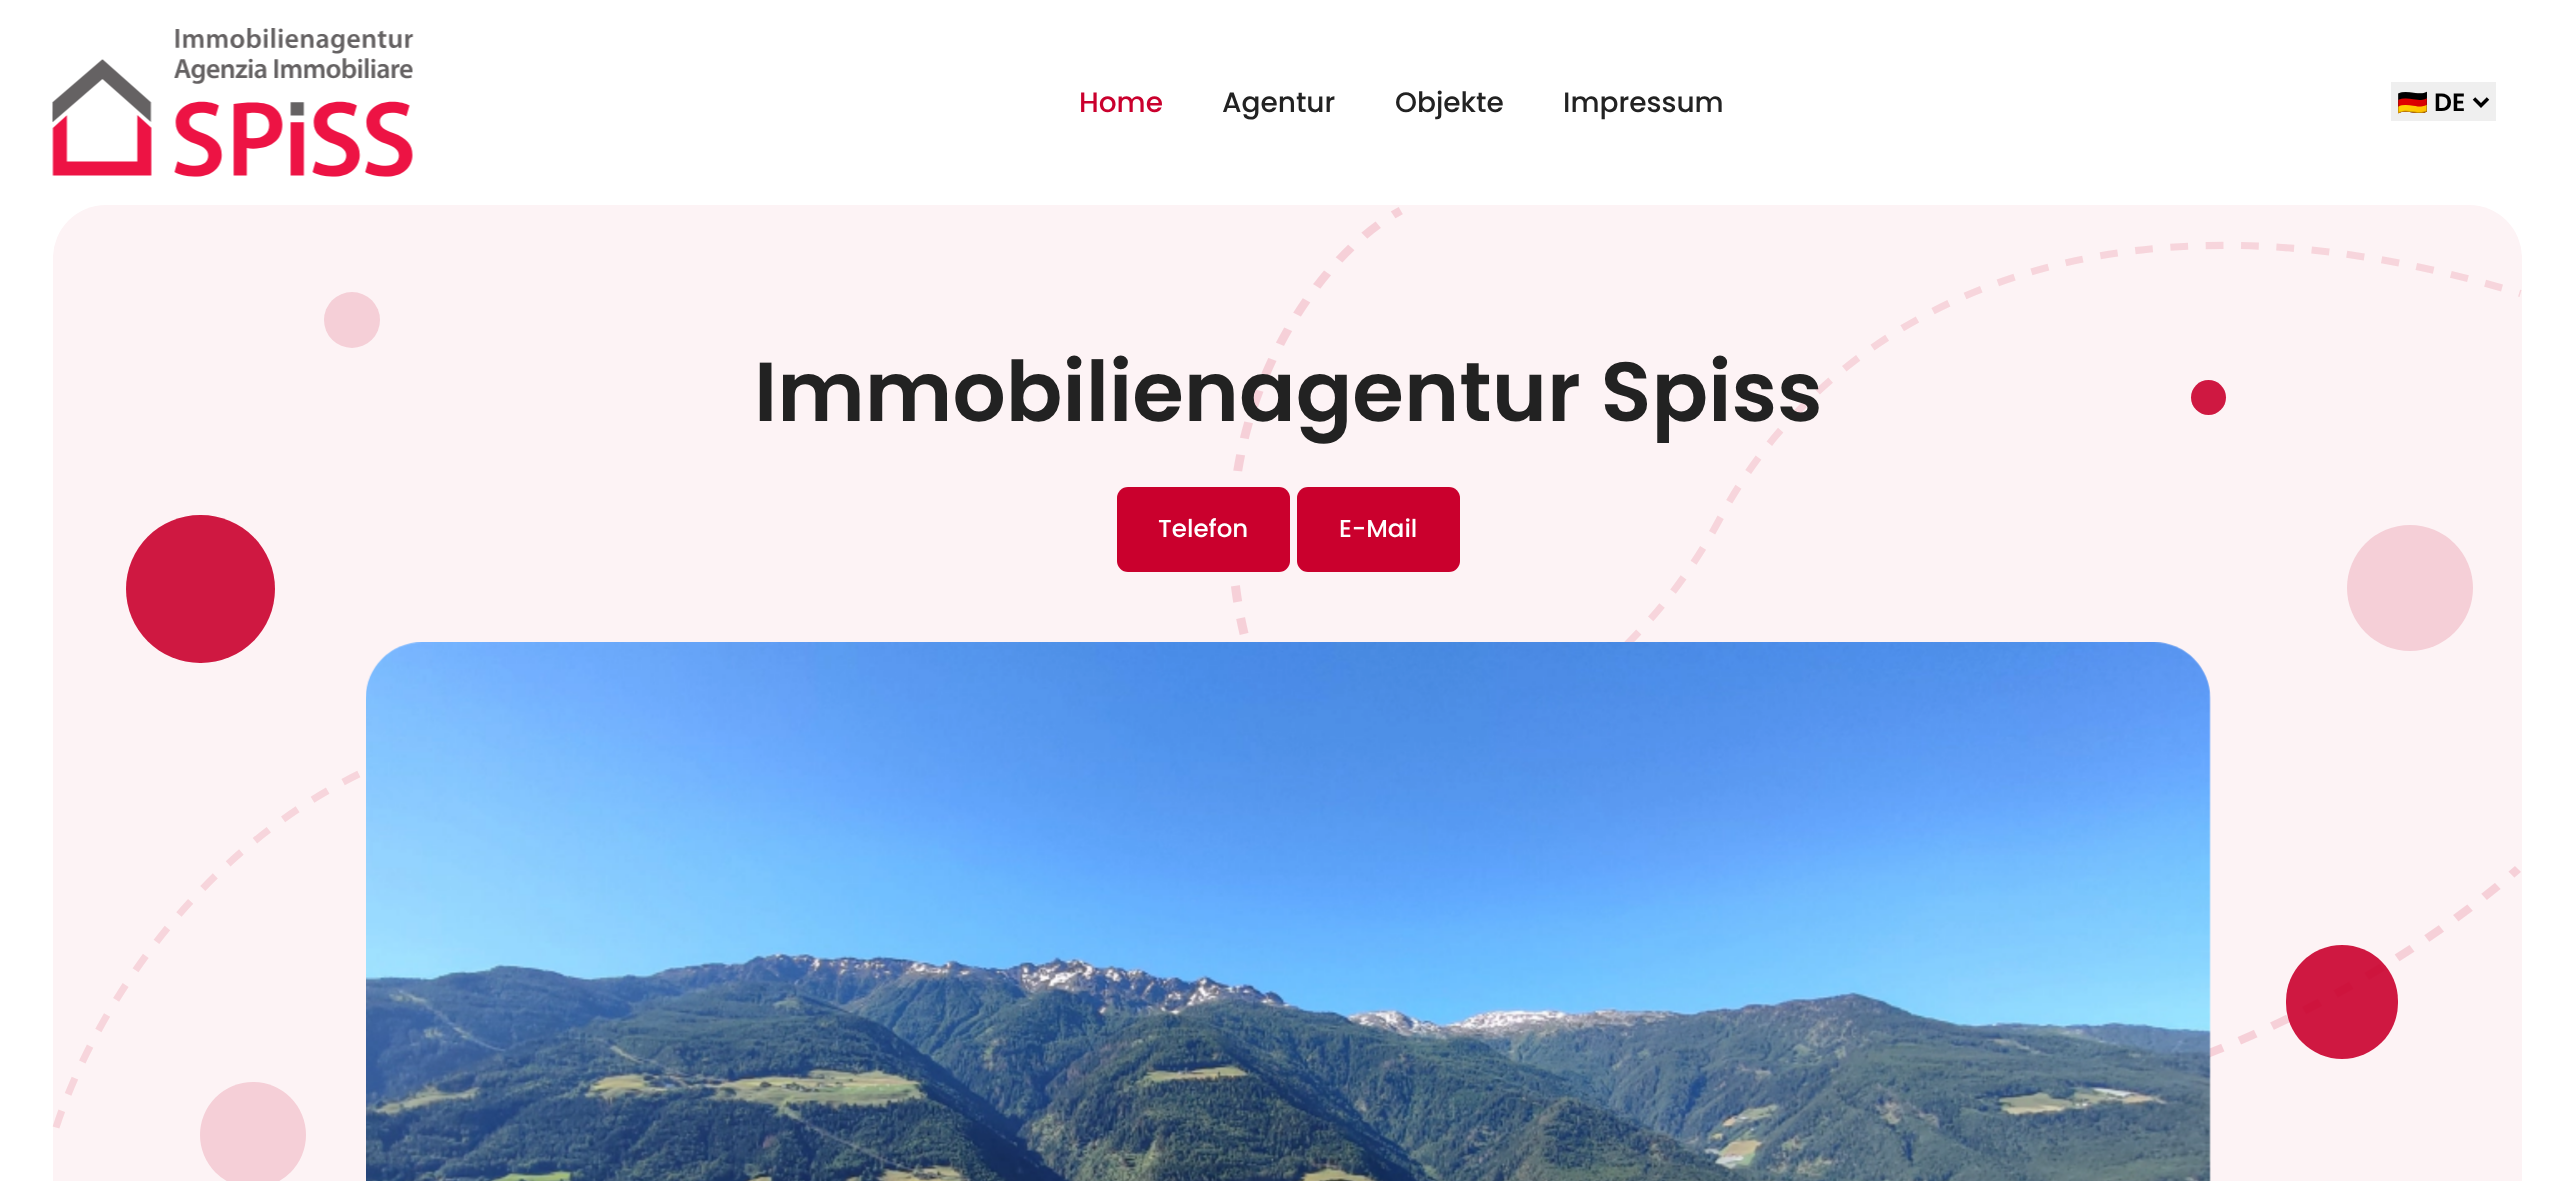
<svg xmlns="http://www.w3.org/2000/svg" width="2575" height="1181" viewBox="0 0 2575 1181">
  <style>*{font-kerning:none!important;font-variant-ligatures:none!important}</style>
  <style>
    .t1 { font: 500 28px Poppins; fill: #ca002d; }
    .t2 { font: 500 28px Poppins; fill: #222; }
    .t3 { font: bold 25px Noto Color Emoji; fill: #000; }
    .t4 { font: 600 25px Poppins; fill: #000; }
    .t5 { font: 600 83.6px Poppins; fill: #222; }
    .t6 { font: 500 24.5px Poppins; fill: #fff; }
  </style>
  <defs>
    <clipPath id="clip1"><rect x="2398" y="82" width="70" height="39"/></clipPath>
  </defs>
  <rect width="100%" height="100%" fill="#fff"/>
  <image x="52" y="28" width="362" height="149" href="images/1.png"/>
  <text x="1079" y="112" class="t1">Home</text>
  <text x="1222" y="112" class="t2">Agentur</text>
  <text x="1395" y="112" class="t2">Objekte</text>
  <text x="1563" y="112" class="t2">Impressum</text>
  <rect x="2391" y="82" width="105" height="39" fill="#efefef"/>
  <path d="M2474 98.5L2481 105.5L2488 98.5" fill="none" stroke="#000" stroke-width="3.5"/>
  <g clip-path="url(#clip1)">
    <text x="2397" y="111" class="t3">🇩🇪</text>
  </g>
  <text x="2434" y="111" class="t4">DE</text>
  <rect x="53" y="205" width="2469" height="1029" rx="53" fill="#fdf3f5"/>
  <circle cx="352" cy="320" r="28" fill="#f5cfd7"/>
  <circle cx="2208.5" cy="397.5" r="17.5" fill="#cf1841"/>
  <rect x="126" y="515" width="149" height="148" rx="74" fill="#cf1841"/>
  <circle cx="2410" cy="588" r="63" fill="#f5cfd7"/>
  <rect x="2286" y="945" width="112" height="114" rx="56" fill="#cf1841"/>
  <circle cx="253" cy="1135" r="53" fill="#f5cfd7"/>
  <path d="M56 1127.5C114.5 947 346 618 803 749C1374 912.5 1622 703 1720.5 517.5C1819.5 331.5 2078.5 158.5 2520.5 293.5" fill="none" stroke="#ca002d1f" stroke-width="7.1" stroke-dasharray="17.68 17.68"/>
  <image x="1231" y="207" width="1290" height="851" href="images/2.png"/>
  <text x="754" y="421" class="t5">Immobilienagentur Spiss</text>
  <rect x="1117" y="487" width="173" height="85" rx="11" fill="#ca002d"/>
  <text x="1158" y="537" class="t6">Telefon</text>
  <rect x="1297" y="487" width="163" height="85" rx="11" fill="#ca002d"/>
  <text x="1339" y="537" class="t6">E-Mail</text>
  <image x="366" y="642" width="1845" height="539" href="images/3.png"/>
</svg>
